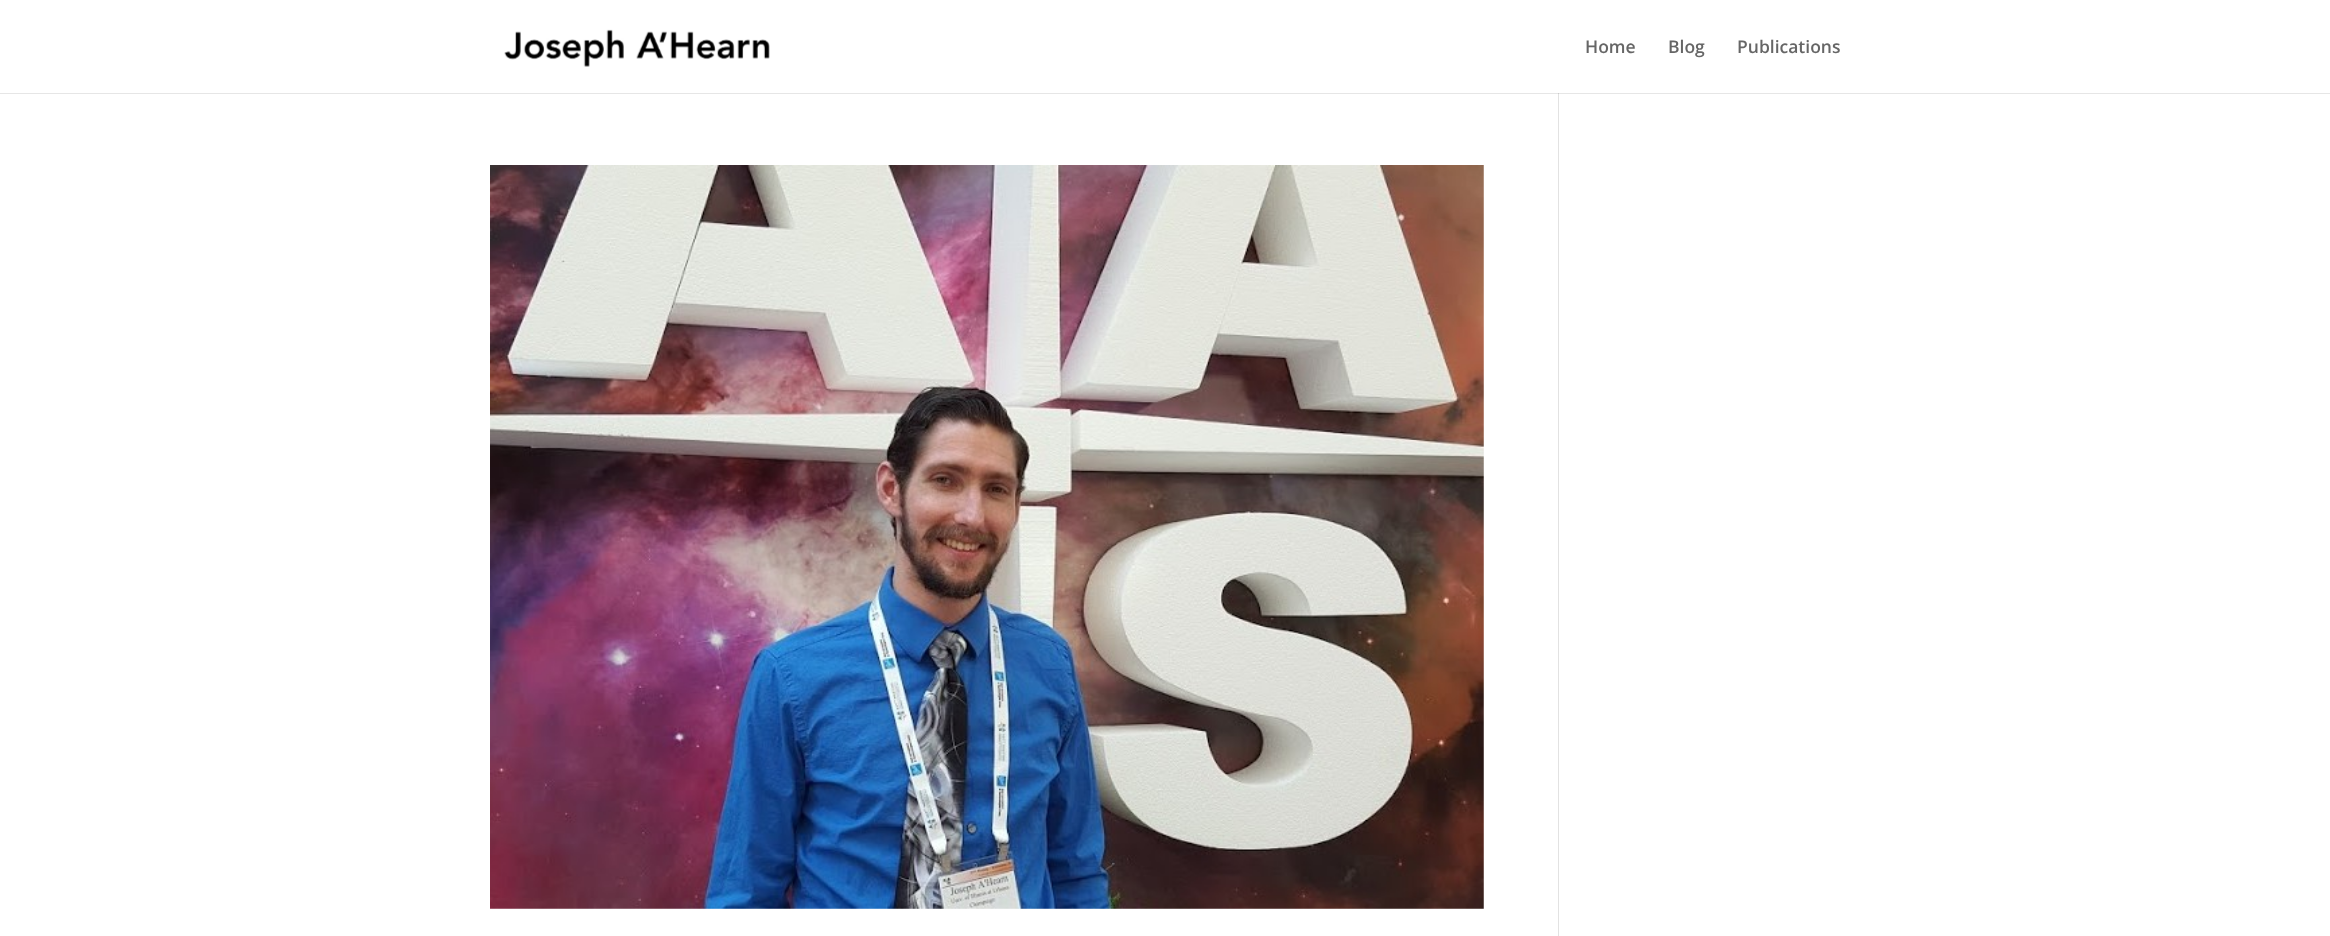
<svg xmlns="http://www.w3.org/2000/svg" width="2330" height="936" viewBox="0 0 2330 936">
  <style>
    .t1 { font: 600 17.5px Open Sans; fill: #666; }
  </style>
  <rect width="100%" height="100%" fill="#fff"/>
  <rect x="0" y="93" width="2330" height="1" fill="#e6e6e6"/>
  <image x="504" y="29" width="266" height="38" href="images/1.png"/>
  <text x="1585" y="53" class="t1">Home</text>
  <text x="1668" y="53" class="t1">Blog</text>
  <text x="1737" y="53" class="t1">Publications</text>
  <image x="490" y="165" width="994" height="744" href="images/2.png"/>
  <rect x="1558" y="93" width="1" height="843" fill="#e2e2e2"/>
  <rect x="1558" y="93" width="1" height="1" fill="#cbcbcb"/>
</svg>
